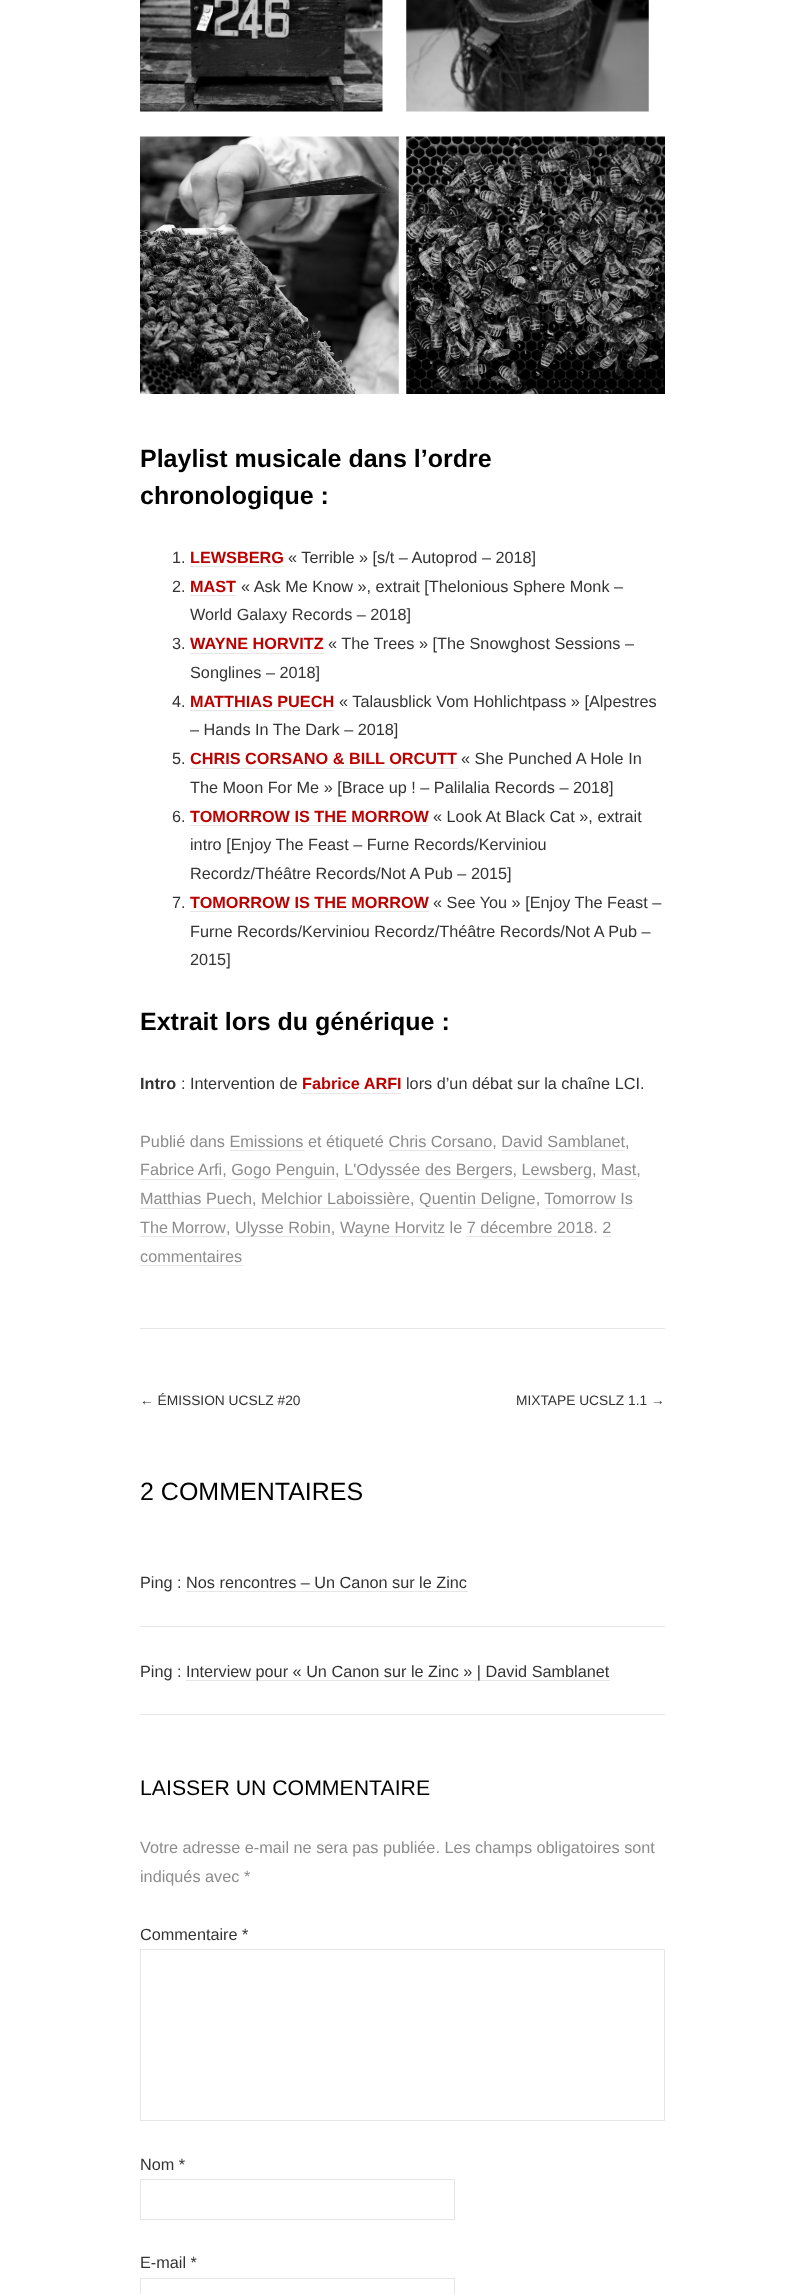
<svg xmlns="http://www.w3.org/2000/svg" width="805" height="2294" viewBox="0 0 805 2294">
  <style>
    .t1 { font: bold 25px Liberation Sans; fill: #000; }
    .t2 { font: 16.25px Liberation Sans; fill: #333; }
    .t3 { font: bold 16.25px Liberation Sans; fill: #b00; }
    .t4 { font: bold 16.25px Liberation Sans; fill: #333; }
    .t5 { font: 16.25px Liberation Sans; fill: #8c8c8c; }
    .t6 { font: 13.75px Liberation Sans; fill: #333; }
    .t7 { font: 25px Liberation Sans; fill: #000; }
    .t8 { font: 21.25px Liberation Sans; fill: #000; }
  </style>
  <rect width="100%" height="100%" fill="#fff"/>
  <rect x="140" y="1328" width="525" height="1" fill="#e6e6e6"/>
  <image x="140" y="0" width="243" height="112" href="images/1.png"/>
  <image x="406" y="0" width="243" height="112" href="images/2.png"/>
  <image x="140" y="136" width="259" height="258" href="images/3.png"/>
  <image x="406" y="136" width="259" height="258" href="images/4.png"/>
  <text x="140" y="467" class="t1">Playlist musicale dans l’ordre</text>
  <text x="140" y="504" class="t1">chronologique :</text>
  <text x="172" y="563" class="t2">1.</text>
  <text x="190" y="563" class="t3">LEWSBERG</text>
  <rect x="190" y="566" width="94" height="1" fill="#e6e6e6"/>
  <text x="288" y="563" class="t2">« Terrible » [s/t – Autoprod – 2018]</text>
  <text x="172" y="592" class="t2">2.</text>
  <text x="190" y="592" class="t3">MAST</text>
  <rect x="190" y="595" width="46" height="1" fill="#e6e6e6"/>
  <text x="241" y="592" class="t2">« Ask Me Know », extrait [Thelonious Sphere Monk –</text>
  <text x="190" y="620" class="t2">World Galaxy Records – 2018]</text>
  <text x="172" y="649" class="t2">3.</text>
  <text x="190" y="649" class="t3">WAYNE HORVITZ</text>
  <rect x="190" y="653" width="134" height="1" fill="#e6e6e6"/>
  <text x="328" y="649" class="t2">« The Trees » [The Snowghost Sessions –</text>
  <text x="190" y="678" class="t2">Songlines – 2018]</text>
  <text x="172" y="707" class="t2">4.</text>
  <text x="190" y="707" class="t3">MATTHIAS PUECH</text>
  <rect x="190" y="710" width="144" height="1" fill="#e6e6e6"/>
  <text x="339" y="707" class="t2">« Talausblick Vom Hohlichtpass » [Alpestres</text>
  <text x="190" y="735" class="t2">– Hands In The Dark – 2018]</text>
  <text x="172" y="764" class="t2">5.</text>
  <text x="190" y="764" class="t3">CHRIS CORSANO &amp; BILL ORCUTT</text>
  <rect x="190" y="768" width="268" height="1" fill="#e6e6e6"/>
  <text x="461" y="764" class="t2">« She Punched A Hole In</text>
  <text x="190" y="793" class="t2">The Moon For Me » [Brace up ! – Palilalia Records – 2018]</text>
  <text x="172" y="822" class="t2">6.</text>
  <text x="190" y="822" class="t3">TOMORROW IS THE MORROW</text>
  <rect x="190" y="825" width="239" height="1" fill="#e6e6e6"/>
  <text x="433" y="822" class="t2">« Look At Black Cat », extrait</text>
  <text x="190" y="850" class="t2">intro [Enjoy The Feast – Furne Records/Kerviniou</text>
  <text x="190" y="879" class="t2">Recordz/Théâtre Records/Not A Pub – 2015]</text>
  <text x="172" y="908" class="t2">7.</text>
  <text x="190" y="908" class="t3">TOMORROW IS THE MORROW</text>
  <rect x="190" y="911" width="239" height="1" fill="#e6e6e6"/>
  <text x="433" y="908" class="t2">« See You » [Enjoy The Feast –</text>
  <text x="190" y="937" class="t2">Furne Records/Kerviniou Recordz/Théâtre Records/Not A Pub –</text>
  <text x="190" y="965" class="t2">2015]</text>
  <text x="140" y="1030" class="t1">Extrait lors du générique :</text>
  <text x="140" y="1089" class="t4">Intro</text>
  <text x="181" y="1089" class="t2">: Intervention de</text>
  <text x="302" y="1089" class="t3">Fabrice ARFI</text>
  <rect x="301" y="1093" width="100" height="1" fill="#e6e6e6"/>
  <text x="406" y="1089" class="t2">lors d’un débat sur la chaîne LCI.</text>
  <text x="140" y="1147" class="t5">Publié dans Emissions et étiqueté Chris Corsano, David Samblanet,</text>
  <rect x="230" y="1150" width="74" height="1" fill="#e6e6e6"/>
  <rect x="389" y="1150" width="104" height="1" fill="#e6e6e6"/>
  <rect x="501" y="1150" width="124" height="1" fill="#e6e6e6"/>
  <text x="140" y="1175" class="t5">Fabrice Arfi, Gogo Penguin, L'Odyssée des Bergers, Lewsberg, Mast,</text>
  <rect x="140" y="1179" width="83" height="1" fill="#e6e6e6"/>
  <rect x="231" y="1179" width="104" height="1" fill="#e6e6e6"/>
  <rect x="344" y="1179" width="169" height="1" fill="#e6e6e6"/>
  <rect x="521" y="1179" width="72" height="1" fill="#e6e6e6"/>
  <rect x="601" y="1179" width="35" height="1" fill="#e6e6e6"/>
  <text x="140" y="1204" class="t5">Matthias Puech, Melchior Laboissière, Quentin Deligne, Tomorrow Is</text>
  <rect x="140" y="1208" width="113" height="1" fill="#e6e6e6"/>
  <rect x="261" y="1208" width="149" height="1" fill="#e6e6e6"/>
  <rect x="419" y="1208" width="117" height="1" fill="#e6e6e6"/>
  <text x="140" y="1233" word-spacing="-1" class="t5">The Morrow</text>
  <rect x="545" y="1208" width="88" height="1" fill="#e6e6e6"/>
  <rect x="140" y="1236" width="86" height="1" fill="#e6e6e6"/>
  <text x="226" y="1233" class="t5">,</text>
  <rect x="235" y="1236" width="95" height="1" fill="#e6e6e6"/>
  <text x="235" y="1233" class="t5">Ulysse Robin,</text>
  <rect x="340" y="1236" width="105" height="1" fill="#e6e6e6"/>
  <text x="340" y="1233" class="t5">Wayne Horvitz le 7 décembre 2018. 2</text>
  <rect x="466" y="1236" width="127" height="1" fill="#e6e6e6"/>
  <text x="140" y="1262" class="t5">commentaires</text>
  <rect x="603" y="1236" width="8" height="1" fill="#e6e6e6"/>
  <rect x="140" y="1265" width="103" height="1" fill="#e6e6e6"/>
  <text x="140" y="1405" class="t6">← ÉMISSION UCSLZ #20</text>
  <text x="516" y="1405" class="t6">MIXTAPE UCSLZ 1.1 →</text>
  <text x="140" y="1500" class="t7">2 COMMENTAIRES</text>
  <rect x="140" y="1714" width="525" height="1" fill="#e6e6e6"/>
  <text x="140" y="1588" class="t2">Ping : Nos rencontres – Un Canon sur le Zinc</text>
  <rect x="186" y="1591" width="282" height="1" fill="#e6e6e6"/>
  <rect x="140" y="1626" width="525" height="1" fill="#e6e6e6"/>
  <text x="140" y="1677" class="t2">Ping :</text>
  <rect x="186" y="1680" width="424" height="1" fill="#e6e6e6"/>
  <text x="186" y="1677" class="t2">Interview pour « Un Canon sur le Zinc » | David Samblanet</text>
  <text x="140" y="1795" class="t8">LAISSER UN COMMENTAIRE</text>
  <text x="140" y="1853" class="t5">Votre adresse e-mail ne sera pas publiée. Les champs obligatoires sont</text>
  <text x="140" y="1882" class="t5">indiqués avec *</text>
  <text x="140" y="1940" class="t2">Commentaire *</text>
  <rect x="140.5" y="1949.5" width="524" height="171" fill="none" stroke="#e6e6e6"/>
  <text x="140" y="2170" class="t2">Nom *</text>
  <rect x="140.5" y="2179.5" width="314" height="40" fill="none" stroke="#e6e6e6"/>
  <text x="140" y="2268" class="t2">E-mail *</text>
  <rect x="140.5" y="2278.5" width="314" height="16" fill="none" stroke="#e6e6e6"/>
</svg>
